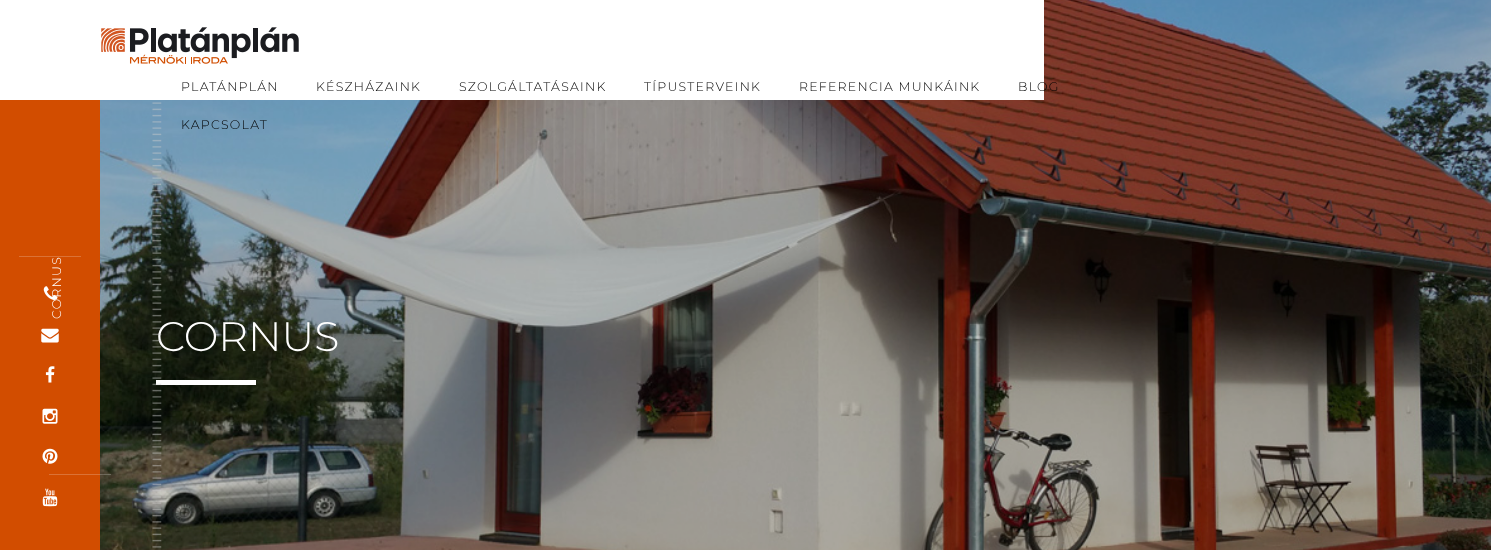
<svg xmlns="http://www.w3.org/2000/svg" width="1491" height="550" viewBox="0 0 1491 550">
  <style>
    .t1 { font: 100 12.5px Montserrat; letter-spacing: 1.25px; fill: #000; }
    .t2 { font: 100 12.5px Montserrat; letter-spacing: 1.25px; fill: #fff; }
    .t3 { font: 100 41.25px Montserrat; fill: #fff; }
  </style>
  <rect width="100%" height="100%" fill="#fff"/>
  <image x="100" y="0" width="1391" height="550" href="images/9.png"/>
  <rect x="100" y="0" width="944" height="100" fill="#fff"/>
  <image x="101" y="27" width="198" height="37" href="images/1.png"/>
  <text x="181" y="91" class="t1">PLATÁNPLÁN</text>
  <text x="316" y="91" class="t1">KÉSZHÁZAINK</text>
  <text x="459" y="91" class="t1">SZOLGÁLTATÁSAINK</text>
  <text x="644" y="91" class="t1">TÍPUSTERVEINK</text>
  <text x="799" y="91" class="t1">REFERENCIA MUNKÁINK</text>
  <text x="1018" y="91" class="t1">BLOG</text>
  <text x="181" y="129" class="t1">KAPCSOLAT</text>
  <rect x="0" y="100" width="100" height="450" fill="#d24d00"/>
  <rect x="19" y="256" width="62" height="1" fill="#db7236"/>
  <image x="43" y="286" width="15" height="14" href="images/2.png"/>
  <image x="41" y="328" width="18" height="15" href="images/3.png"/>
  <image x="45" y="366" width="10" height="17" href="images/4.png"/>
  <image x="42" y="408" width="16" height="16" href="images/5.png"/>
  <image x="42" y="448" width="16" height="16" href="images/6.png"/>
  <image x="42" y="488" width="16" height="19" href="images/7.png"/>
  <text x="61" y="319" transform="rotate(-90 61 319)" class="t2">CORNUS</text>
  <rect x="49" y="474" width="62" height="1" fill="#ffffff36"/>
  <text x="156" y="351" class="t3">CORNUS</text>
  <rect x="156" y="380" width="100" height="5" fill="#fff"/>
  <image x="152" y="102" width="10" height="446" href="images/8.png"/>
</svg>
